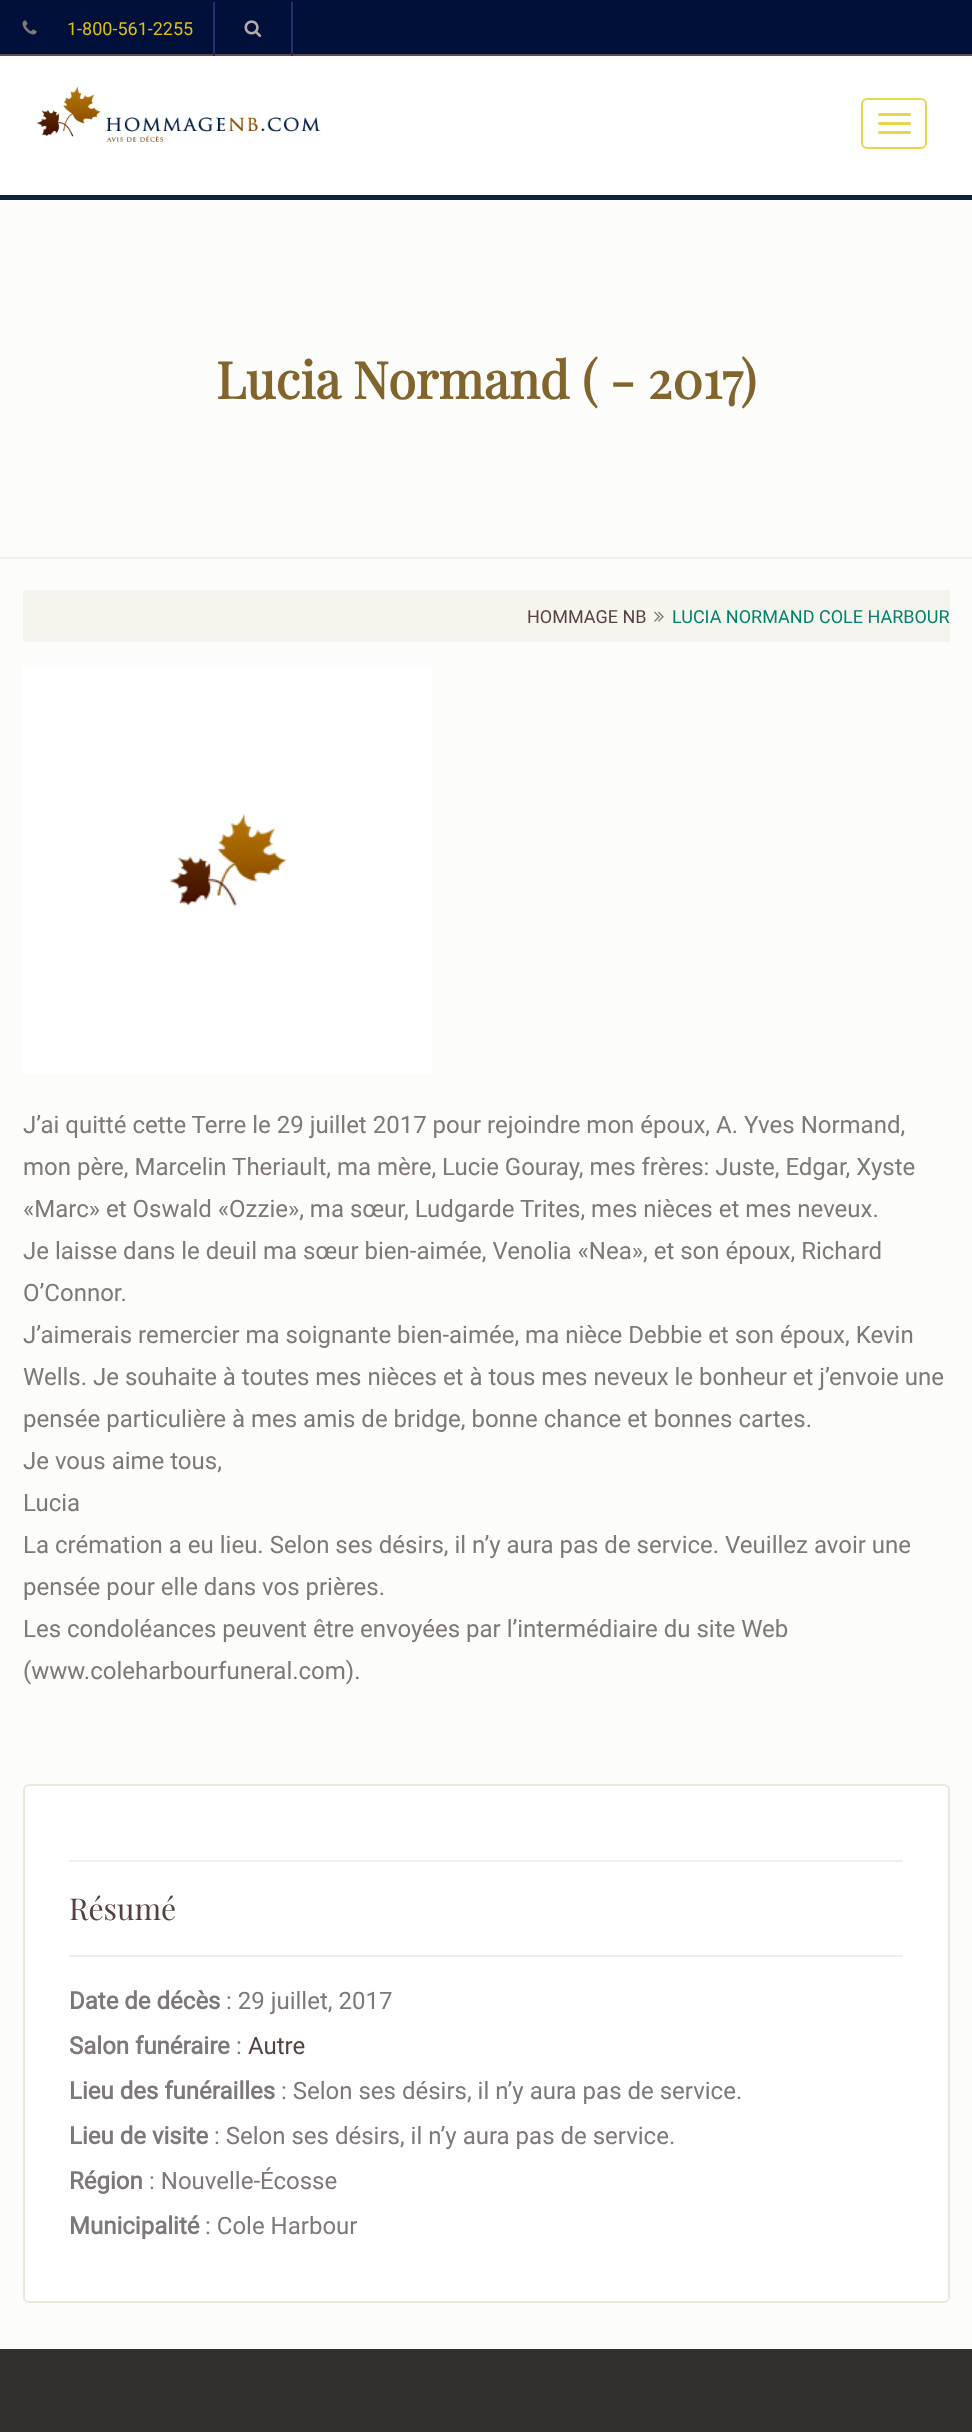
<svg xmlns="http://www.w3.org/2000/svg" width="972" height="2432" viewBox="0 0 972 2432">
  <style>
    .t1 { font: 18px Roboto; fill: #debe13; }
    .t2 { font: bold 51px Playfair Display; fill: #82652d; }
    .t3 { font: 18px Roboto; fill: #574040; }
    .t4 { font: 18px Roboto; fill: #02816f; }
    .t5 { font: 24px Roboto; fill: #7e7878; }
    .t6 { font: 30px Playfair Display; fill: #574040; }
    .t7 { font: bold 24px Roboto; fill: #7e7878; }
    .t8 { font: 24px Roboto; fill: #574040; }
  </style>
  <rect width="100%" height="100%" fill="#fcfcfa"/>
  <rect x="0" y="0" width="972" height="54" fill="#01103b"/>
  <rect x="0" y="54" width="972" height="2" fill="#644c4c"/>
  <image x="22" y="20" width="15" height="15" href="images/1.png"/>
  <text x="67" y="35" class="t1">1-800-561-2255</text>
  <rect x="291" y="2" width="2" height="60" fill="#1e336c"/>
  <rect x="213" y="2" width="2" height="60" fill="#1e336c"/>
  <image x="244" y="20" width="18" height="17" href="images/2.png"/>
  <rect x="0" y="56" width="972" height="139" fill="#fff"/>
  <rect x="0" y="195" width="972" height="5" fill="#0d223f"/>
  <image x="36" y="86" width="285" height="56" href="images/3.png"/>
  <rect x="862" y="99" width="64" height="49" rx="5" fill="none" stroke="#e9d749" stroke-width="2"/>
  <rect x="878" y="113" width="33" height="3" rx="1.5" fill="#e9d749"/>
  <rect x="878" y="122" width="33" height="3" rx="1.5" fill="#e9d749"/>
  <rect x="878" y="131" width="33" height="3" rx="1.5" fill="#e9d749"/>
  <rect x="0" y="557" width="972" height="2" fill="#eee"/>
  <text x="216" y="399" class="t2">Lucia Normand ( - 2017)</text>
  <rect x="23" y="590" width="927" height="52" fill="#f6f5ed"/>
  <text x="527" y="623" class="t3">HOMMAGE NB</text>
  <image x="654" y="611" width="10" height="11" href="images/4.png"/>
  <text x="672" y="623" class="t4">LUCIA NORMAND COLE HARBOUR</text>
  <rect x="23" y="665" width="409" height="409" fill="#fff"/>
  <image x="169" y="814" width="118" height="93" href="images/5.png"/>
  <text x="23" y="1133" class="t5">J’ai quitté cette Terre le 29 juillet 2017 pour rejoindre mon époux, A. Yves Normand,</text>
  <text x="23" y="1175" class="t5">mon père, Marcelin Theriault, ma mère, Lucie Gouray, mes frères: Juste, Edgar, Xyste</text>
  <text x="23" y="1217" class="t5">«Marc» et Oswald «Ozzie», ma sœur, Ludgarde Trites, mes nièces et mes neveux.</text>
  <text x="23" y="1259" class="t5">Je laisse dans le deuil ma sœur bien-aimée, Venolia «Nea», et son époux, Richard</text>
  <text x="23" y="1301" class="t5">O’Connor.</text>
  <text x="23" y="1343" class="t5">J’aimerais remercier ma soignante bien-aimée, ma nièce Debbie et son époux, Kevin</text>
  <text x="23" y="1385" class="t5">Wells. Je souhaite à toutes mes nièces et à tous mes neveux le bonheur et j’envoie une</text>
  <text x="23" y="1427" class="t5">pensée particulière à mes amis de bridge, bonne chance et bonnes cartes.</text>
  <text x="23" y="1469" class="t5">Je vous aime tous,</text>
  <text x="23" y="1511" class="t5">Lucia</text>
  <text x="23" y="1553" class="t5">La crémation a eu lieu. Selon ses désirs, il n’y aura pas de service. Veuillez avoir une</text>
  <text x="23" y="1595" class="t5">pensée pour elle dans vos prières.</text>
  <text x="23" y="1637" class="t5">Les condoléances peuvent être envoyées par l’intermédiaire du site Web</text>
  <text x="23" y="1679" class="t5">(www.coleharbourfuneral.com).</text>
  <rect x="24" y="1785" width="925" height="517" rx="5" fill="#fff" stroke="#eae8dc" stroke-width="2"/>
  <rect x="69" y="1860" width="834" height="2" fill="#eee"/>
  <text x="69" y="1920" class="t6">Résumé</text>
  <rect x="69" y="1955" width="834" height="2" fill="#eee"/>
  <text x="69" y="2009" class="t7">Date de décès</text>
  <text x="226" y="2009" class="t5">: 29 juillet, 2017</text>
  <text x="69" y="2054" class="t7">Salon funéraire</text>
  <text x="236" y="2054" class="t5">:</text>
  <text x="248" y="2054" class="t8">Autre</text>
  <text x="69" y="2099" class="t7">Lieu des funérailles</text>
  <text x="281" y="2099" class="t5">: Selon ses désirs, il n’y aura pas de service.</text>
  <text x="69" y="2144" class="t7">Lieu de visite</text>
  <text x="214" y="2144" class="t5">: Selon ses désirs, il n’y aura pas de service.</text>
  <text x="69" y="2189" class="t7">Région</text>
  <text x="149" y="2189" class="t5">: Nouvelle-Écosse</text>
  <text x="69" y="2234" class="t7">Municipalité</text>
  <text x="205" y="2234" class="t5">: Cole Harbour</text>
  <rect x="0" y="2349" width="972" height="83" fill="#342f2f"/>
</svg>
